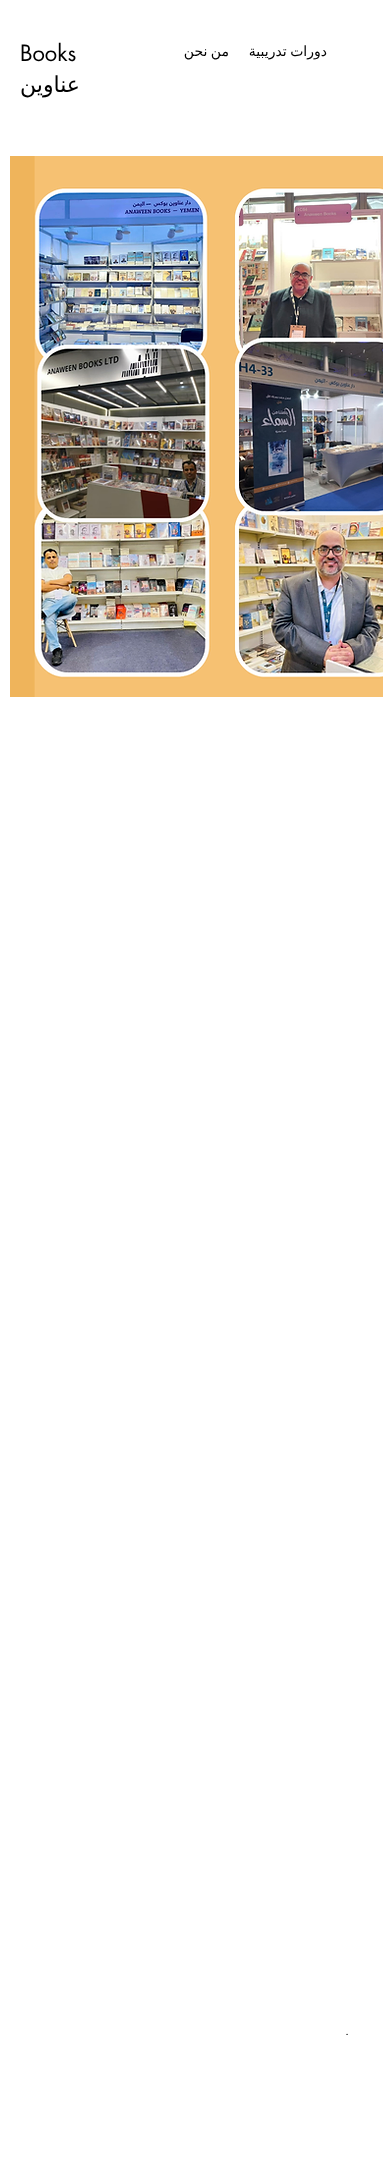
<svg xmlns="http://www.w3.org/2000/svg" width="383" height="2157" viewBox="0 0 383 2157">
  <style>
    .t1 { font: 14px DejaVu Sans; direction: rtl; fill: #000; }
    .t2 { font: 22px futura; fill: #000; }
    .t3 { font: 22px DejaVu Sans; direction: rtl; fill: #000; }
    .t4 { font: 300 14px 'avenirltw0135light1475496'; direction: rtl; fill: #000; }
  </style>
  <rect width="100%" height="100%" fill="#fff"/>
  <text x="327" y="56" word-spacing="-1" class="t1">دورات تدريبية</text>
  <text x="229" y="56" word-spacing="-1" class="t1">من نحن</text>
  <text x="20" y="61" class="t2">Books</text>
  <text x="80" y="92" class="t3">عناوين</text>
  <image x="10" y="156" width="373" height="541" href="images/1.png"/>
  <text x="349" y="2035" class="t4">.</text>
</svg>
